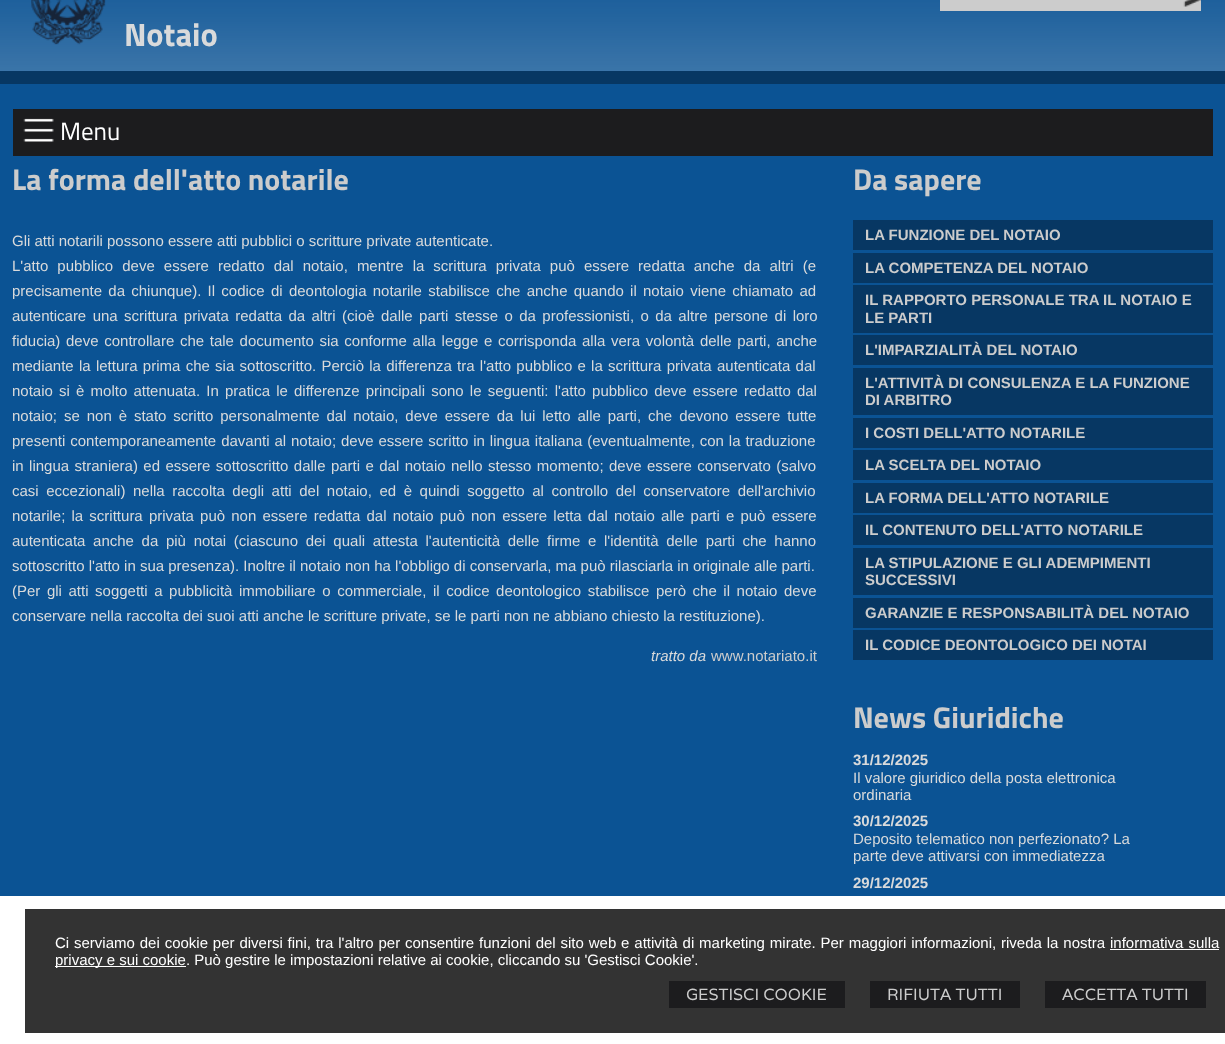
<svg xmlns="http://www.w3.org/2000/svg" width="1225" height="1044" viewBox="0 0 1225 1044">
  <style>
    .t1 { font: bold 32.5px Titillium Web; fill: #d9dadb; }
    .t2 { font: 25px Titillium Web; fill: #fff; }
    .t3 { font: bold 30px Titillium Web; fill: #ccc; }
    .t4 { font: 15px Liberation Sans; fill: #d9dadb; }
    .t5 { font: italic 15px Liberation Sans; fill: #d9dadb; }
    .t6 { font: 15px Liberation Sans; fill: #ccc; }
    .t7 { font: bold 15px Liberation Sans; fill: #ccc; }
    .t8 { font: bold 15px Liberation Sans; fill: #d9dadb; }
    .t9 { font: 15px Liberation Sans; fill: #fff; }
    .t10 { font: 16.25px Varela; fill: #ccc; }
  </style>
  <rect width="100%" height="100%" fill="#0b5394"/>
  <image x="0" y="0" width="1225" height="71" href="images/1.png"/>
  <rect x="0" y="71" width="1225" height="13" fill="#073763"/>
  <rect x="940" y="0" width="261" height="11" fill="#ccc"/>
  <image x="1183" y="0" width="19" height="7" href="images/2.png"/>
  <image x="31" y="0" width="75" height="45" href="images/3.png"/>
  <text x="124" y="46" class="t1">Notaio</text>
  <rect x="13" y="109" width="1200" height="47" fill="#1c1c1e"/>
  <image x="23" y="118" width="31" height="24" href="images/4.png"/>
  <text x="60" y="140" class="t2">Menu</text>
  <text x="12" y="190" class="t3">La forma dell'atto notarile</text>
  <text x="12" y="246" class="t4">Gli atti notarili possono essere atti pubblici o scritture private autenticate.</text>
  <text x="12" y="271" word-spacing="4.9" class="t4">L'atto pubblico deve essere redatto dal notaio, mentre la scrittura privata può essere redatta anche da altri (e</text>
  <text x="12" y="296" word-spacing="2.1" class="t4">precisamente da chiunque). Il codice di deontologia notarile stabilisce che anche quando il notaio viene chiamato ad</text>
  <text x="12" y="321" word-spacing="2.25" class="t4">autenticare una scrittura privata redatta da altri (cioè dalle parti stesse o da professionisti, o da altre persone di loro</text>
  <text x="12" y="346" word-spacing="1.5" class="t4">fiducia) deve controllare che tale documento sia conforme alla legge e corrisponda alla vera volontà delle parti, anche</text>
  <text x="12" y="371" word-spacing="1.1" class="t4">mediante la lettura prima che sia sottoscritto. Perciò la differenza tra l'atto pubblico e la scrittura privata autenticata dal</text>
  <text x="12" y="396" word-spacing="2" class="t4">notaio si è molto attenuata. In pratica le differenze principali sono le seguenti: l'atto pubblico deve essere redatto dal</text>
  <text x="12" y="421" word-spacing="2.75" class="t4">notaio; se non è stato scritto personalmente dal notaio, deve essere da lui letto alle parti, che devono essere tutte</text>
  <text x="12" y="446" word-spacing="0.75" class="t4">presenti contemporaneamente davanti al notaio; deve essere scritto in lingua italiana (eventualmente, con la traduzione</text>
  <text x="12" y="471" word-spacing="1.25" class="t4">in lingua straniera) ed essere sottoscritto dalle parti e dal notaio nello stesso momento; deve essere conservato (salvo</text>
  <text x="12" y="496" word-spacing="3.4" class="t4">casi eccezionali) nella raccolta degli atti del notaio, ed è quindi soggetto al controllo del conservatore dell'archivio</text>
  <text x="12" y="521" word-spacing="2" class="t4">notarile; la scrittura privata può non essere redatta dal notaio può non essere letta dal notaio alle parti e può essere</text>
  <text x="12" y="546" word-spacing="3.5" class="t4">autenticata anche da più notai (ciascuno dei quali attesta l'autenticità delle firme e l'identità delle parti che hanno</text>
  <text x="12" y="571" class="t4">sottoscritto l'atto in sua presenza). Inoltre il notaio non ha l'obbligo di conservarla, ma può rilasciarla in originale alle parti.</text>
  <text x="12" y="596" word-spacing="2.4" class="t4">(Per gli atti soggetti a pubblicità immobiliare o commerciale, il codice deontologico stabilisce però che il notaio deve</text>
  <text x="12" y="621" class="t4">conservare nella raccolta dei suoi atti anche le scritture private, se le parti non ne abbiano chiesto la restituzione).</text>
  <text x="651" y="661" class="t5">tratto da</text>
  <text x="711" y="661" class="t6">www.notariato.it</text>
  <text x="853" y="190" class="t3">Da sapere</text>
  <rect x="853" y="220" width="360" height="30" fill="#073763"/>
  <text x="865" y="240" class="t7">LA FUNZIONE DEL NOTAIO</text>
  <rect x="853" y="253" width="360" height="30" fill="#073763"/>
  <text x="865" y="273" class="t7">LA COMPETENZA DEL NOTAIO</text>
  <rect x="853" y="285" width="360" height="48" fill="#073763"/>
  <text x="865" y="305" class="t7">IL RAPPORTO PERSONALE TRA IL NOTAIO E</text>
  <text x="865" y="323" class="t7">LE PARTI</text>
  <rect x="853" y="335" width="360" height="30" fill="#073763"/>
  <text x="865" y="355" class="t7">L'IMPARZIALITÀ DEL NOTAIO</text>
  <rect x="853" y="368" width="360" height="47" fill="#073763"/>
  <text x="865" y="388" class="t7">L'ATTIVITÀ DI CONSULENZA E LA FUNZIONE</text>
  <text x="865" y="405" class="t7">DI ARBITRO</text>
  <rect x="853" y="418" width="360" height="30" fill="#073763"/>
  <text x="865" y="438" class="t7">I COSTI DELL'ATTO NOTARILE</text>
  <rect x="853" y="450" width="360" height="30" fill="#073763"/>
  <text x="865" y="470" class="t7">LA SCELTA DEL NOTAIO</text>
  <rect x="853" y="483" width="360" height="30" fill="#073763"/>
  <text x="865" y="503" class="t7">LA FORMA DELL'ATTO NOTARILE</text>
  <rect x="853" y="515" width="360" height="30" fill="#073763"/>
  <text x="865" y="535" class="t7">IL CONTENUTO DELL'ATTO NOTARILE</text>
  <rect x="853" y="548" width="360" height="47" fill="#073763"/>
  <text x="865" y="568" class="t7">LA STIPULAZIONE E GLI ADEMPIMENTI</text>
  <text x="865" y="585" class="t7">SUCCESSIVI</text>
  <rect x="853" y="598" width="360" height="30" fill="#073763"/>
  <text x="865" y="618" class="t7">GARANZIE E RESPONSABILITÀ DEL NOTAIO</text>
  <rect x="853" y="630" width="360" height="30" fill="#073763"/>
  <text x="865" y="650" class="t7">IL CODICE DEONTOLOGICO DEI NOTAI</text>
  <text x="853" y="728" class="t3">News Giuridiche</text>
  <text x="853" y="765" class="t8">31/12/2025</text>
  <text x="853" y="783" class="t4">Il valore giuridico della posta elettronica</text>
  <text x="853" y="800" class="t4">ordinaria</text>
  <text x="853" y="826" class="t8">30/12/2025</text>
  <text x="853" y="844" class="t4">Deposito telematico non perfezionato? La</text>
  <text x="853" y="861" class="t4">parte deve attivarsi con immediatezza</text>
  <text x="853" y="888" class="t8">29/12/2025</text>
  <rect x="0" y="896" width="1225" height="148" fill="#fff"/>
  <rect x="25" y="909" width="1200" height="124" fill="#333"/>
  <text x="55" y="948" word-spacing="0.7" class="t9">Ci serviamo dei cookie per diversi fini, tra l'altro per consentire funzioni del sito web e attività di marketing mirate. Per maggiori informazioni, riveda la nostra</text>
  <text x="1110" y="948" word-spacing="1" class="t9">informativa sulla</text>
  <rect x="1110" y="949" width="109" height="1" fill="#fff"/>
  <rect x="55" y="966" width="131" height="1" fill="#fff"/>
  <text x="55" y="965" class="t9">privacy e sui cookie. Può gestire le impostazioni relative ai cookie, cliccando su 'Gestisci Cookie'.</text>
  <rect x="669" y="981" width="176" height="27" fill="#1c1c1e"/>
  <text x="686" y="1000" class="t10">GESTISCI COOKIE</text>
  <rect x="870" y="981" width="150" height="27" fill="#1c1c1e"/>
  <text x="887" y="1000" class="t10">RIFIUTA TUTTI</text>
  <rect x="1045" y="981" width="161" height="27" fill="#1c1c1e"/>
  <text x="1062" y="1000" class="t10">ACCETTA TUTTI</text>
</svg>
